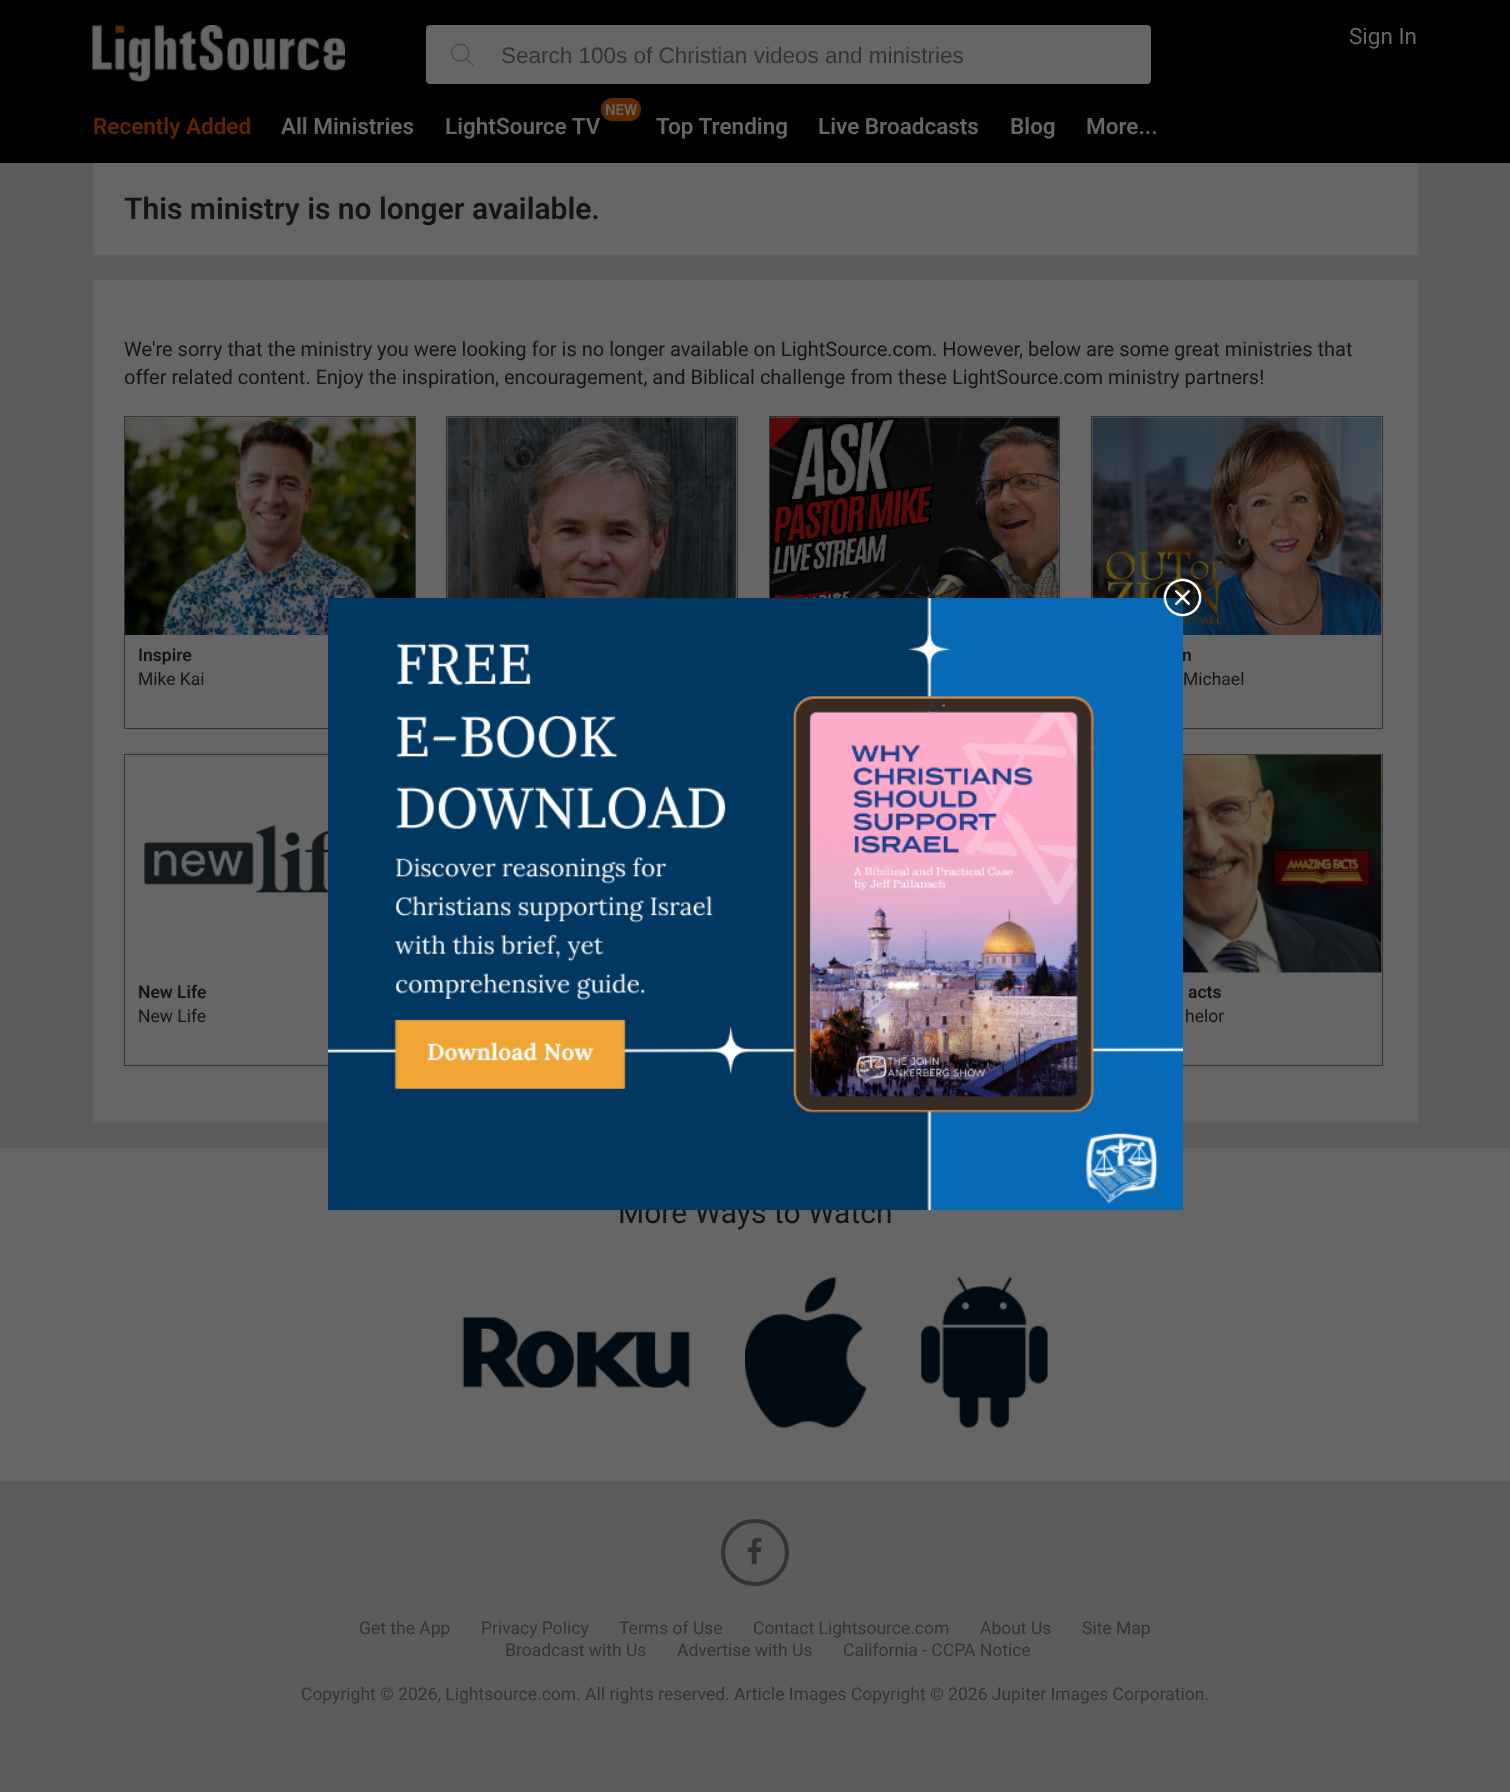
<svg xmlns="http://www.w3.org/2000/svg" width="1510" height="1792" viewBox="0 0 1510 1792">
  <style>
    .t1 { font: 22.5px Roboto; fill: #666; }
    .t2 { font: 22.5px Liberation Sans; fill: #333; }
    .t3 { font: 600 22.5px Roboto; fill: #612402; }
    .t4 { font: 600 22.5px Roboto; fill: #666; }
    .t5 { font: 600 15px Roboto; fill: #666; }
    .t6 { font: 600 30px Roboto; fill: #141414; }
    .t7 { font: 20px Roboto; fill: #141414; }
    .t8 { font: 600 17.5px Roboto; fill: #141414; }
    .t9 { font: 17.5px Roboto; fill: #141414; }
    .t10 { font: 30px Roboto; fill: #141414; }
    .t11 { font: 17.5px Roboto; fill: #333; }
  </style>
  <rect width="100%" height="100%" fill="#5c5c5c"/>
  <rect x="0" y="0" width="1510" height="163" fill="#000"/>
  <image x="92" y="25" width="253" height="57" href="images/1.png"/>
  <text x="1349" y="44" class="t1">Sign In</text>
  <rect x="426" y="25" width="725" height="59" rx="4" fill="#666"/>
  <image x="451" y="44" width="23" height="22" href="images/2.png"/>
  <text x="501" y="63" class="t2">Search 100s of Christian videos and ministries</text>
  <text x="93" y="134" class="t3">Recently Added</text>
  <text x="281" y="134" class="t4">All Ministries</text>
  <rect x="601" y="98" width="40" height="23" rx="11.5" fill="#5e2900"/>
  <text x="605" y="115" class="t5">NEW</text>
  <text x="445" y="134" class="t4">LightSource TV</text>
  <text x="656" y="134" class="t4">Top Trending</text>
  <text x="818" y="134" class="t4">Live Broadcasts</text>
  <text x="1010" y="134" class="t4">Blog</text>
  <text x="1086" y="134" class="t4">More...</text>
  <rect x="93" y="163" width="1325" height="92" fill="#666"/>
  <text x="124" y="219" class="t6">This ministry is no longer available.</text>
  <rect x="93" y="280" width="1325" height="843" fill="#666"/>
  <text x="124" y="356" class="t7">We're sorry that the ministry you were looking for is no longer available on LightSource.com. However, below are some great ministries that</text>
  <text x="124" y="384" class="t7">offer related content. Enjoy the inspiration, encouragement, and Biblical challenge from these LightSource.com ministry partners!</text>
  <rect x="124.5" y="416.5" width="291" height="312" fill="none" stroke="#333"/>
  <image x="125" y="417" width="290" height="218" href="images/3.png"/>
  <text x="138" y="661" class="t8">Inspire</text>
  <text x="138" y="685" class="t9">Mike Kai</text>
  <rect x="446.5" y="416.5" width="291" height="312" fill="none" stroke="#333"/>
  <image x="447" y="417" width="290" height="181" href="images/4.png"/>
  <rect x="769.5" y="416.5" width="290" height="312" fill="none" stroke="#333"/>
  <image x="770" y="417" width="289" height="181" href="images/5.png"/>
  <rect x="1091.5" y="416.5" width="291" height="312" fill="none" stroke="#333"/>
  <image x="1092" y="417" width="290" height="218" href="images/6.png"/>
  <text x="1182" y="661" class="t8">n</text>
  <text x="1183" y="685" class="t9">Michael</text>
  <rect x="124.5" y="754.5" width="291" height="311" fill="none" stroke="#333"/>
  <image x="143" y="820" width="185" height="77" href="images/7.png"/>
  <text x="138" y="998" class="t8">New Life</text>
  <text x="138" y="1022" class="t9">New Life</text>
  <rect x="1091.5" y="754.5" width="291" height="311" fill="none" stroke="#333"/>
  <image x="1183" y="755" width="199" height="218" href="images/8.png"/>
  <text x="1188" y="998" class="t8">acts</text>
  <text x="1185" y="1022" class="t9">helor</text>
  <rect x="0" y="1148" width="1510" height="333" fill="#666"/>
  <text x="618" y="1223" class="t10">More Ways to Watch</text>
  <image x="328" y="598" width="855" height="612" href="images/10.png"/>
  <image x="1163" y="578" width="39" height="39" href="images/9.png"/>
  <image x="462" y="1317" width="228" height="72" href="images/11.png"/>
  <image x="745" y="1277" width="122" height="151" href="images/12.png"/>
  <image x="921" y="1277" width="127" height="151" href="images/13.png"/>
  <rect x="723" y="1521" width="64" height="63" rx="31.5" fill="none" stroke="#333" stroke-width="4"/>
  <image x="747" y="1538" width="15" height="27" href="images/14.png"/>
  <text x="359" y="1634" class="t11">Get the App</text>
  <text x="481" y="1634" class="t11">Privacy Policy</text>
  <text x="619" y="1634" class="t11">Terms of Use</text>
  <text x="753" y="1634" class="t11">Contact Lightsource.com</text>
  <text x="980" y="1634" class="t11">About Us</text>
  <text x="1082" y="1634" class="t11">Site Map</text>
  <text x="505" y="1656" class="t11">Broadcast with Us</text>
  <text x="677" y="1656" class="t11">Advertise with Us</text>
  <text x="843" y="1656" class="t11">California - CCPA Notice</text>
  <text x="301" y="1700" class="t11">Copyright © 2026, Lightsource.com. All rights reserved. Article Images Copyright © 2026 Jupiter Images Corporation.</text>
</svg>
